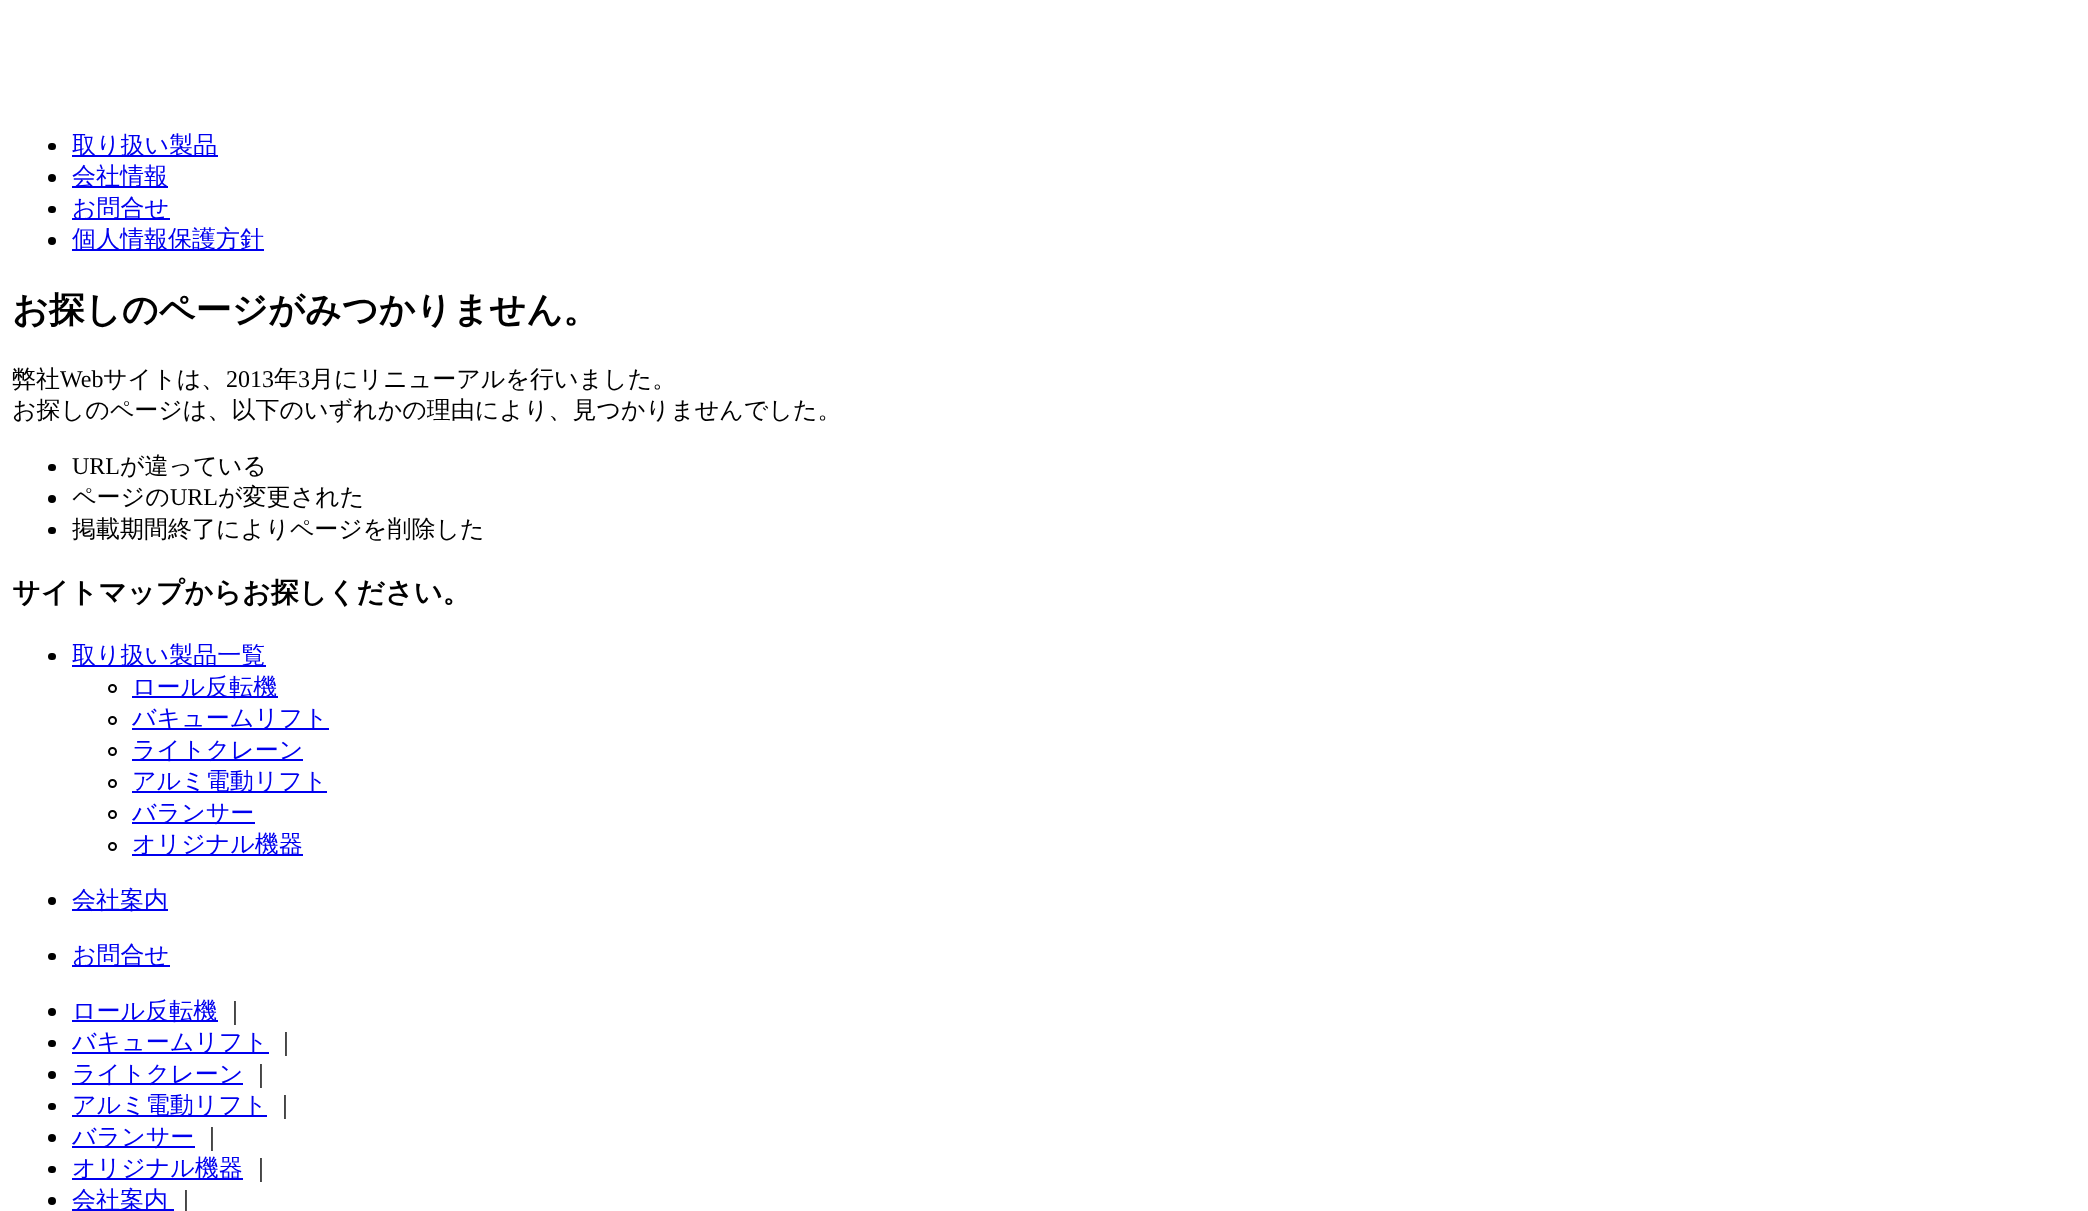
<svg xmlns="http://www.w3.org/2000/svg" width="2088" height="1211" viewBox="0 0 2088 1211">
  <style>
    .t1 { font: 500 24px WenQuanYi Zen Hei; fill: #00e; }
    .t2 { font: bold 36px WenQuanYi Zen Hei; fill: #000; }
    .t3 { font: 500 24px WenQuanYi Zen Hei; fill: #000; }
    .t4 { font: 24px Liberation Serif; fill: #000; }
    .t5 { font: bold 28.1px WenQuanYi Zen Hei; fill: #000; }
  </style>
  <rect width="100%" height="100%" fill="#fff"/>
  <rect x="48" y="143" width="8" height="7" rx="3.5" fill="#000"/>
  <rect x="72" y="155" width="146" height="2" fill="#00e"/>
  <text x="72" y="153" class="t1">取り扱い製品</text>
  <circle cx="52" cy="178" r="4" fill="#000"/>
  <rect x="72" y="186" width="96" height="2" fill="#00e"/>
  <text x="72" y="184" class="t1">会社情報</text>
  <rect x="48" y="206" width="8" height="7" rx="3.5" fill="#000"/>
  <rect x="72" y="218" width="98" height="2" fill="#00e"/>
  <text x="72" y="216" class="t1">お問合せ</text>
  <circle cx="52" cy="241" r="4" fill="#000"/>
  <rect x="72" y="249" width="192" height="2" fill="#00e"/>
  <text x="72" y="247" class="t1">個人情報保護方針</text>
  <text x="12" y="322" class="t2">お探しのページがみつかりません。</text>
  <text x="12" y="387" class="t3">弊社</text>
  <text x="60" y="387" class="t4">Web</text>
  <text x="103" y="387" class="t3">サイトは、</text>
  <text x="226" y="387" class="t4">2013</text>
  <text x="274" y="387" class="t3">年</text>
  <text x="298" y="387" class="t4">3</text>
  <text x="310" y="387" class="t3">月にリニューアルを行いました。</text>
  <text x="12" y="418" class="t3">お探しのページは、以下のいずれかの理由により、見つかりませんでした。</text>
  <rect x="48" y="464" width="8" height="7" rx="3.5" fill="#000"/>
  <text x="72" y="474" class="t4">URL</text>
  <text x="120" y="474" class="t3">が違っている</text>
  <circle cx="52" cy="499" r="4" fill="#000"/>
  <text x="72" y="505" class="t3">ページの</text>
  <text x="170" y="505" class="t4">URL</text>
  <text x="218" y="505" class="t3">が変更された</text>
  <rect x="48" y="527" width="8" height="7" rx="3.5" fill="#000"/>
  <text x="72" y="537" class="t3">掲載期間終了によりページを削除した</text>
  <text x="12" y="602" class="t5">サイトマップからお探しください。</text>
  <rect x="48" y="653" width="8" height="7" rx="3.5" fill="#000"/>
  <rect x="72" y="665" width="194" height="2" fill="#00e"/>
  <text x="72" y="663" class="t1">取り扱い製品一覧</text>
  <circle cx="112.5" cy="688.5" r="3.5" fill="none" stroke="#000" stroke-width="2"/>
  <rect x="132" y="696" width="146" height="2" fill="#00e"/>
  <text x="132" y="695" class="t1">ロール反転機</text>
  <circle cx="112.5" cy="720.5" r="3.5" fill="none" stroke="#000" stroke-width="2"/>
  <rect x="132" y="728" width="197" height="2" fill="#00e"/>
  <text x="132" y="726" class="t1">バキュームリフト</text>
  <circle cx="112.5" cy="751.5" r="3.5" fill="none" stroke="#000" stroke-width="2"/>
  <rect x="132" y="759" width="171" height="2" fill="#00e"/>
  <text x="132" y="758" class="t1">ライトクレーン</text>
  <circle cx="112.5" cy="783.5" r="3.5" fill="none" stroke="#000" stroke-width="2"/>
  <rect x="132" y="791" width="195" height="2" fill="#00e"/>
  <text x="132" y="789" class="t1">アルミ電動リフト</text>
  <circle cx="112.5" cy="814.5" r="3.5" fill="none" stroke="#000" stroke-width="2"/>
  <rect x="132" y="822" width="123" height="2" fill="#00e"/>
  <text x="132" y="821" class="t1">バランサー</text>
  <circle cx="112.5" cy="846.5" r="3.5" fill="none" stroke="#000" stroke-width="2"/>
  <rect x="132" y="854" width="171" height="2" fill="#00e"/>
  <text x="132" y="852" class="t1">オリジナル機器</text>
  <circle cx="52" cy="901" r="4" fill="#000"/>
  <rect x="72" y="909" width="96" height="2" fill="#00e"/>
  <text x="72" y="908" class="t1">会社案内</text>
  <rect x="48" y="953" width="8" height="7" rx="3.5" fill="#000"/>
  <rect x="72" y="965" width="98" height="2" fill="#00e"/>
  <text x="72" y="963" class="t1">お問合せ</text>
  <circle cx="52" cy="1012" r="4" fill="#000"/>
  <rect x="72" y="1020" width="146" height="2" fill="#00e"/>
  <text x="72" y="1019" class="t1">ロール反転機</text>
  <text x="223" y="1019" class="t3">｜</text>
  <rect x="48" y="1040" width="8" height="7" rx="3.5" fill="#000"/>
  <rect x="72" y="1052" width="197" height="2" fill="#00e"/>
  <text x="72" y="1050" class="t1">バキュームリフト</text>
  <text x="274" y="1050" class="t3">｜</text>
  <circle cx="52" cy="1075" r="4" fill="#000"/>
  <rect x="72" y="1083" width="171" height="2" fill="#00e"/>
  <text x="72" y="1082" class="t1">ライトクレーン</text>
  <text x="249" y="1082" class="t3">｜</text>
  <rect x="48" y="1103" width="8" height="7" rx="3.5" fill="#000"/>
  <rect x="72" y="1115" width="195" height="2" fill="#00e"/>
  <text x="72" y="1113" class="t1">アルミ電動リフト</text>
  <text x="273" y="1113" class="t3">｜</text>
  <circle cx="52" cy="1138" r="4" fill="#000"/>
  <rect x="72" y="1146" width="123" height="2" fill="#00e"/>
  <text x="72" y="1145" class="t1">バランサー</text>
  <text x="200" y="1145" class="t3">｜</text>
  <rect x="48" y="1166" width="8" height="7" rx="3.5" fill="#000"/>
  <rect x="72" y="1178" width="171" height="2" fill="#00e"/>
  <text x="72" y="1176" class="t1">オリジナル機器</text>
  <text x="249" y="1176" class="t3">｜</text>
  <circle cx="52" cy="1201" r="4" fill="#000"/>
  <rect x="72" y="1209" width="102" height="2" fill="#00e"/>
  <text x="72" y="1208" class="t1">会社案内</text>
  <text x="174" y="1208" class="t3">｜</text>
</svg>
